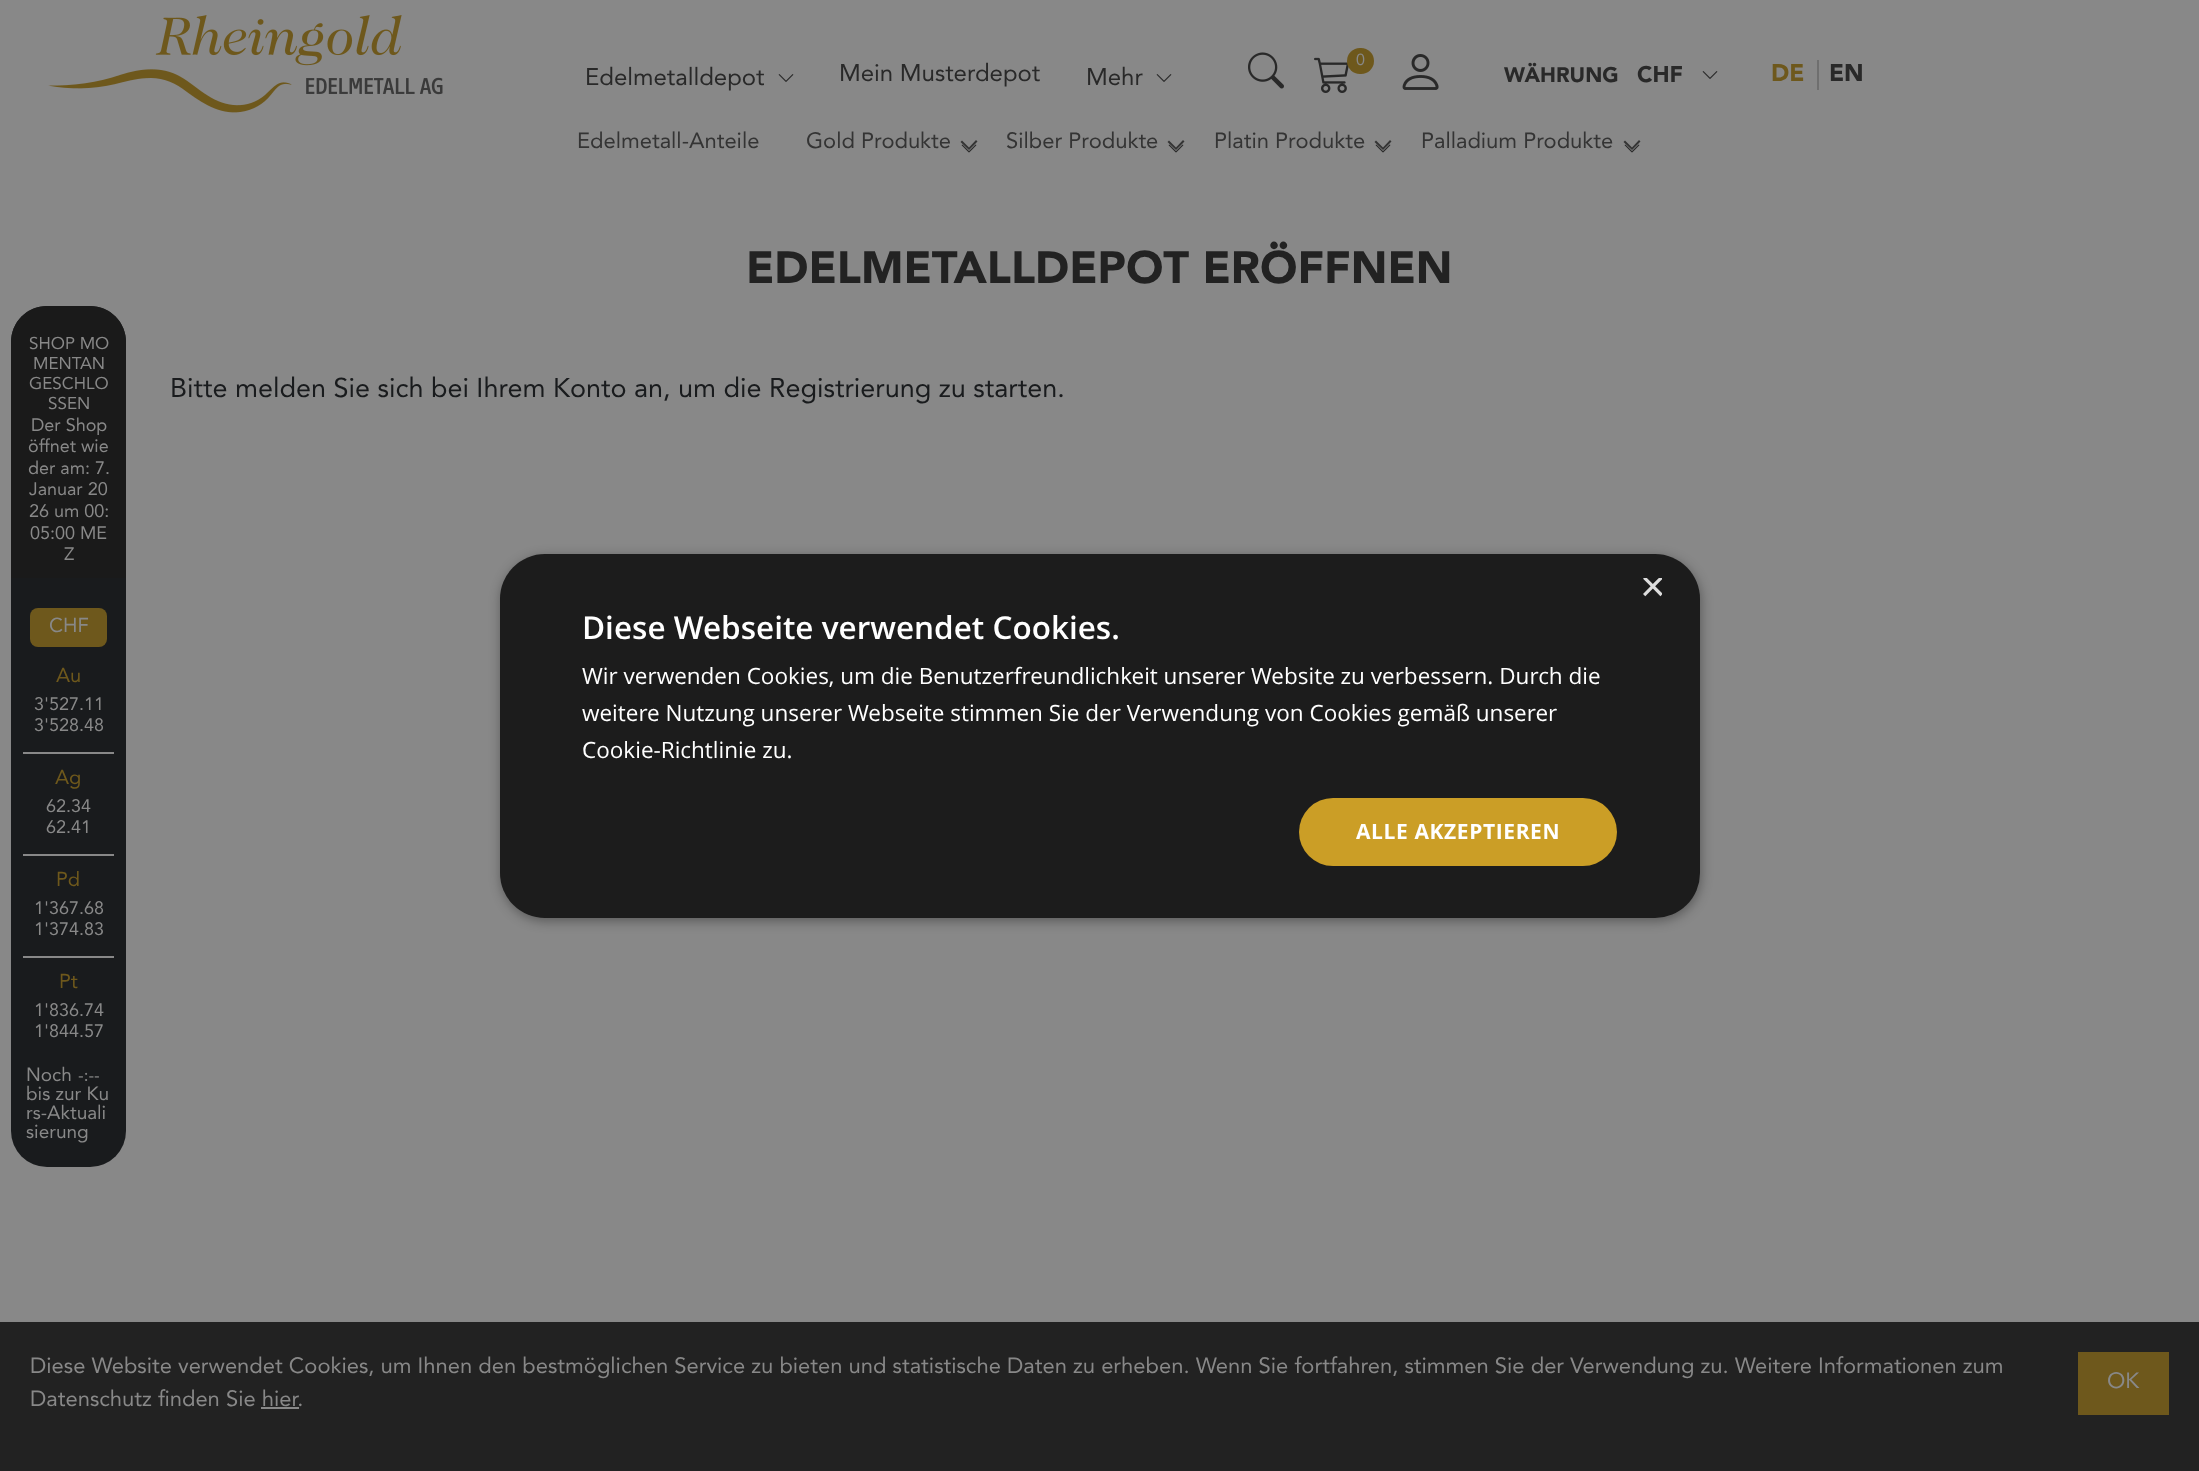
<svg xmlns="http://www.w3.org/2000/svg" width="2199" height="1471" viewBox="0 0 2199 1471">
  <style>
    .t1 { font: 24px Avenir; fill: #292929; }
    .t2 { font: 16px Avenir; fill: #888; }
    .t3 { font: 900 21px Avenir; fill: #292929; }
    .t4 { font: 900 22.5px Avenir; fill: #292929; }
    .t5 { font: 900 24px Avenir; fill: #6e581c; }
    .t6 { font: 900 24px Avenir; fill: #292929; }
    .t7 { font: 22px Avenir; fill: #343434; }
    .t8 { font: 17px Avenir; fill: #888; }
    .t9 { font: 18px Avenir; fill: #888; }
    .t10 { font: 20px Avenir; fill: #888; }
    .t11 { font: 20px Avenir; fill: #6e581c; }
    .t12 { font: 19px Avenir; fill: #888; }
    .t13 { font: 900 45px Avenir; fill: #222; }
    .t14 { font: 27px Avenir; fill: #191b1d; }
    .t15 { font: 44px Liberation Sans; fill: #ddd; }
    .t16 { font: 600 31.5px Open Sans; fill: #fff; }
    .t17 { font: 22.5px Open Sans; fill: #fff; }
    .t18 { font: bold 21px Open Sans; letter-spacing: 0.6px; fill: #fff; }
    .t19 { font: 22px Avenir; fill: #888; }
  </style>
  <defs>
    <clipPath id="clip1"><rect x="1640" y="578" width="22" height="22"/></clipPath>
  </defs>
  <rect width="100%" height="100%" fill="#888"/>
  <image x="48" y="15" width="395" height="98" href="images/1.png"/>
  <text x="585" y="85" class="t1">Edelmetalldepot</text>
  <image x="778" y="74" width="16" height="8" href="images/2.png"/>
  <text x="839" y="81" class="t1">Mein Musterdepot</text>
  <text x="1086" y="85" class="t1">Mehr</text>
  <image x="1156" y="74" width="16" height="8" href="images/2.png"/>
  <image x="1248" y="52" width="36" height="37" href="images/3.png"/>
  <image x="1314" y="57" width="35" height="36" href="images/4.png"/>
  <rect x="1347" y="48" width="27" height="26" rx="13" fill="#6e581c"/>
  <text x="1356" y="65" class="t2">0</text>
  <image x="1402" y="54" width="37" height="36" href="images/5.png"/>
  <text x="1504" y="82" class="t3">WÄHRUNG</text>
  <text x="1637" y="82" class="t4">CHF</text>
  <image x="1702" y="71" width="16" height="8" href="images/2.png"/>
  <rect x="1817" y="60" width="2" height="30" fill="#6f6f6f"/>
  <text x="1771" y="81" class="t5">DE</text>
  <text x="1829" y="81" class="t6">EN</text>
  <text x="577" y="148" class="t7">Edelmetall-Anteile</text>
  <text x="806" y="148" class="t7">Gold Produkte</text>
  <image x="961" y="144" width="16" height="9" href="images/6.png"/>
  <path d="M969 147.5L962 140.5L960.5 142L969 150L977.5 141.5L976 140Z" fill="#343434"/>
  <text x="1006" y="148" class="t7">Silber Produkte</text>
  <image x="1168" y="144" width="16" height="9" href="images/6.png"/>
  <path d="M1176 147.5L1169 140.5L1167.5 142L1176 150L1184.5 141.5L1183 140Z" fill="#343434"/>
  <text x="1214" y="148" class="t7">Platin Produkte</text>
  <image x="1375" y="144" width="16" height="9" href="images/6.png"/>
  <path d="M1383 147.5L1376 140.5L1374.5 142L1383 150L1391.5 141.5L1390 140Z" fill="#343434"/>
  <text x="1421" y="148" class="t7">Palladium Produkte</text>
  <image x="1624" y="144" width="16" height="9" href="images/6.png"/>
  <path d="M1632 147.5L1625 140.5L1623.5 142L1632 150L1640.5 141.5L1639 140Z" fill="#343434"/>
  <rect x="11" y="306" width="115" height="861" rx="36" fill="#191b1d"/>
  <path d="M47 306H90C110 306 126 322 126 342V578H11V342C11 322 27 306 47 306Z" fill="#1a1a1a"/>
  <text x="29" y="349" class="t8">SHOP MO</text>
  <text x="33" y="369" class="t8">MENTAN</text>
  <text x="29" y="389" class="t8">GESCHLO</text>
  <text x="48" y="409" class="t8">SSEN</text>
  <text x="31" y="431" class="t9">Der Shop</text>
  <text x="28" y="452" class="t9">öffnet wie</text>
  <text x="28" y="474" class="t9">der am: 7.</text>
  <text x="29" y="495" class="t9">Januar 20</text>
  <text x="29" y="517" class="t9">26 um 00:</text>
  <text x="30" y="539" class="t9">05:00 ME</text>
  <text x="64" y="560" class="t9">Z</text>
  <rect x="30" y="608" width="77" height="39" rx="8" fill="#6e581c"/>
  <text x="49" y="632" class="t10">CHF</text>
  <text x="56" y="682" class="t11">Au</text>
  <rect x="23" y="752" width="91" height="2" fill="#888"/>
  <text x="34" y="710" class="t9">3'527.11</text>
  <text x="34" y="731" class="t9">3'528.48</text>
  <text x="55" y="784" class="t11">Ag</text>
  <rect x="23" y="854" width="91" height="2" fill="#888"/>
  <text x="46" y="812" class="t9">62.34</text>
  <text x="46" y="833" class="t9">62.41</text>
  <text x="56" y="886" class="t11">Pd</text>
  <rect x="23" y="956" width="91" height="2" fill="#888"/>
  <text x="34" y="914" class="t9">1'367.68</text>
  <text x="34" y="935" class="t9">1'374.83</text>
  <text x="59" y="988" class="t11">Pt</text>
  <text x="34" y="1016" class="t9">1'836.74</text>
  <text x="34" y="1037" class="t9">1'844.57</text>
  <text x="26" y="1081" class="t12">Noch</text>
  <text x="78" y="1081" class="t8">-:--</text>
  <text x="26" y="1100" class="t12">bis zur Ku</text>
  <text x="26" y="1119" class="t12">rs-Aktuali</text>
  <text x="26" y="1138" class="t12">sierung</text>
  <text x="746" y="283" class="t13">EDELMETALLDEPOT ERÖFFNEN</text>
  <text x="170" y="397" class="t14">Bitte melden Sie sich bei Ihrem Konto an, um die Registrierung zu starten.</text>
  <rect x="501" y="557" width="1200" height="364" rx="45" fill="#00000059" filter="blur(6px)"/>
  <rect x="500" y="554" width="1200" height="364" rx="45" fill="#1c1c1c"/>
  <g clip-path="url(#clip1)">
    <text x="1640" y="601" class="t15">×</text>
  </g>
  <text x="582" y="639" class="t16">Diese Webseite verwendet Cookies.</text>
  <text x="582" y="684" class="t17">Wir verwenden Cookies, um die Benutzerfreundlichkeit unserer Website zu verbessern. Durch die</text>
  <text x="582" y="721" class="t17">weitere Nutzung unserer Webseite stimmen Sie der Verwendung von Cookies gemäß unserer</text>
  <text x="582" y="758" class="t17">Cookie-Richtlinie zu.</text>
  <rect x="1299" y="798" width="318" height="68" rx="34" fill="#cb9e26"/>
  <text x="1356" y="839" class="t18">ALLE AKZEPTIEREN</text>
  <rect x="0" y="1322" width="2199" height="149" fill="#222"/>
  <text x="30" y="1373" class="t19">Diese Website verwendet Cookies, um Ihnen den bestmöglichen Service zu bieten und statistische Daten zu erheben. Wenn Sie fortfahren, stimmen Sie der Verwendung zu. Weitere Informationen zum</text>
  <text x="30" y="1406" class="t19">Datenschutz finden Sie hier.</text>
  <rect x="261" y="1407" width="38" height="2" fill="#888"/>
  <rect x="2078" y="1352" width="91" height="63" fill="#6e581c"/>
  <text x="2107" y="1388" class="t19">OK</text>
</svg>
